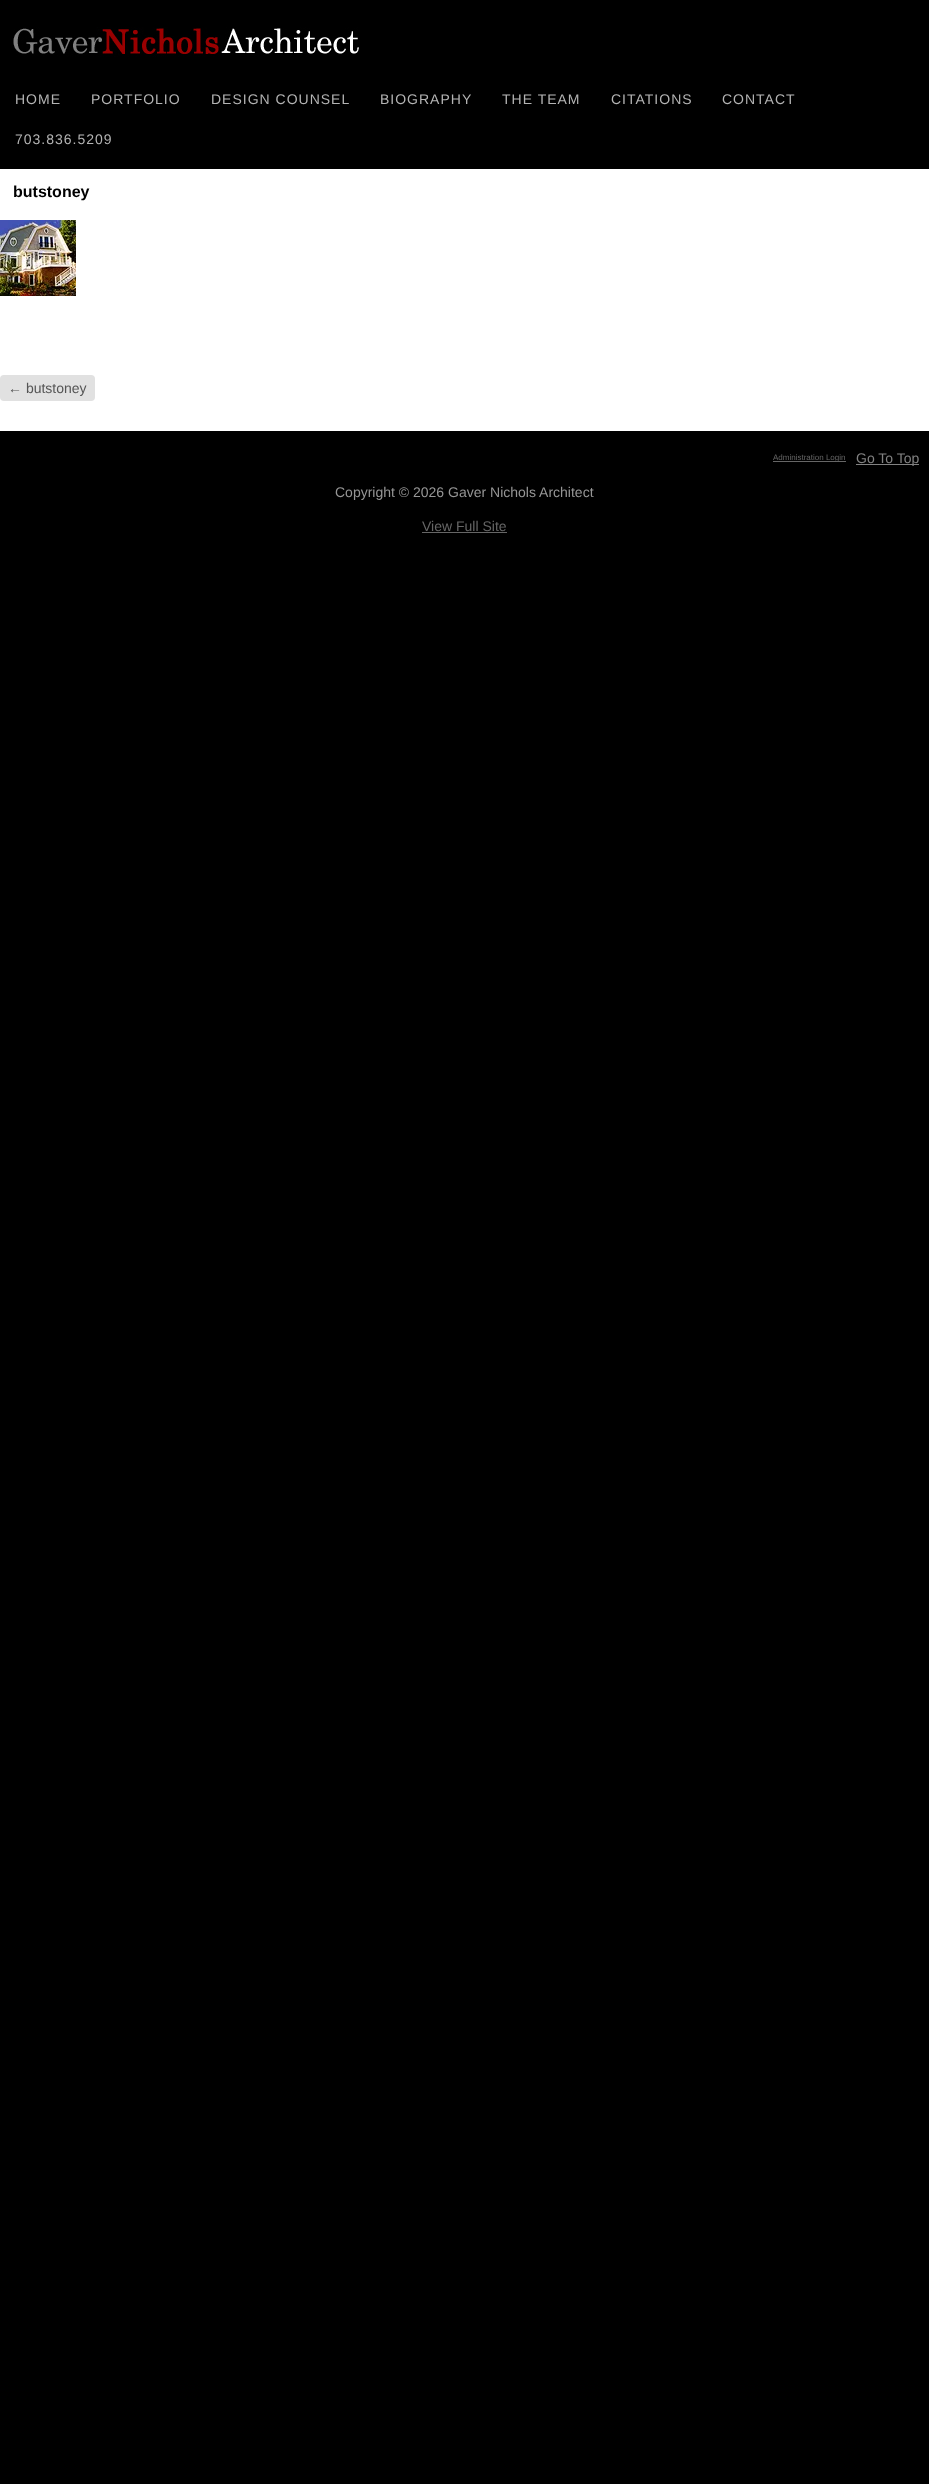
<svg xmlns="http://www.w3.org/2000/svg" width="929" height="2484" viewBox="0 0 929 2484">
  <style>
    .t1 { font: 14px Liberation Sans; letter-spacing: 1px; fill: #b4b4b4; }
    .t2 { font: bold 16px Liberation Sans; fill: #000; }
    .t3 { font: 14px Liberation Sans; fill: #555; }
    .t4 { font: 8px Liberation Sans; fill: #666; }
    .t5 { font: 14px Liberation Sans; fill: #828282; }
    .t6 { font: 14px Liberation Sans; fill: #969696; }
    .t7 { font: 14px Liberation Sans; fill: #666; }
  </style>
  <rect width="100%" height="100%" fill="#000"/>
  <image x="13" y="27" width="346" height="30" href="images/1.png"/>
  <text x="15" y="104" class="t1">HOME</text>
  <text x="91" y="104" class="t1">PORTFOLIO</text>
  <text x="211" y="104" class="t1">DESIGN COUNSEL</text>
  <text x="380" y="104" class="t1">BIOGRAPHY</text>
  <text x="502" y="104" class="t1">THE TEAM</text>
  <text x="611" y="104" class="t1">CITATIONS</text>
  <text x="722" y="104" class="t1">CONTACT</text>
  <text x="15" y="144" class="t1">703.836.5209</text>
  <rect x="0" y="169" width="929" height="262" fill="#fff"/>
  <text x="13" y="197" class="t2">butstoney</text>
  <image x="0" y="220" width="76" height="76" href="images/2.png"/>
  <rect x="0" y="375" width="95" height="26" rx="4" fill="#e1e1e1"/>
  <text x="8" y="393" class="t3">← butstoney</text>
  <rect x="773" y="461" width="73" height="1" fill="#666"/>
  <text x="773" y="460" class="t4">Administration Login</text>
  <rect x="856" y="464" width="63" height="1" fill="#828282"/>
  <text x="856" y="463" class="t5">Go To Top</text>
  <text x="335" y="497" class="t6">Copyright © 2026 Gaver Nichols Architect</text>
  <text x="422" y="531" class="t7">View Full Site</text>
  <rect x="422" y="532" width="85" height="1" fill="#666"/>
</svg>
